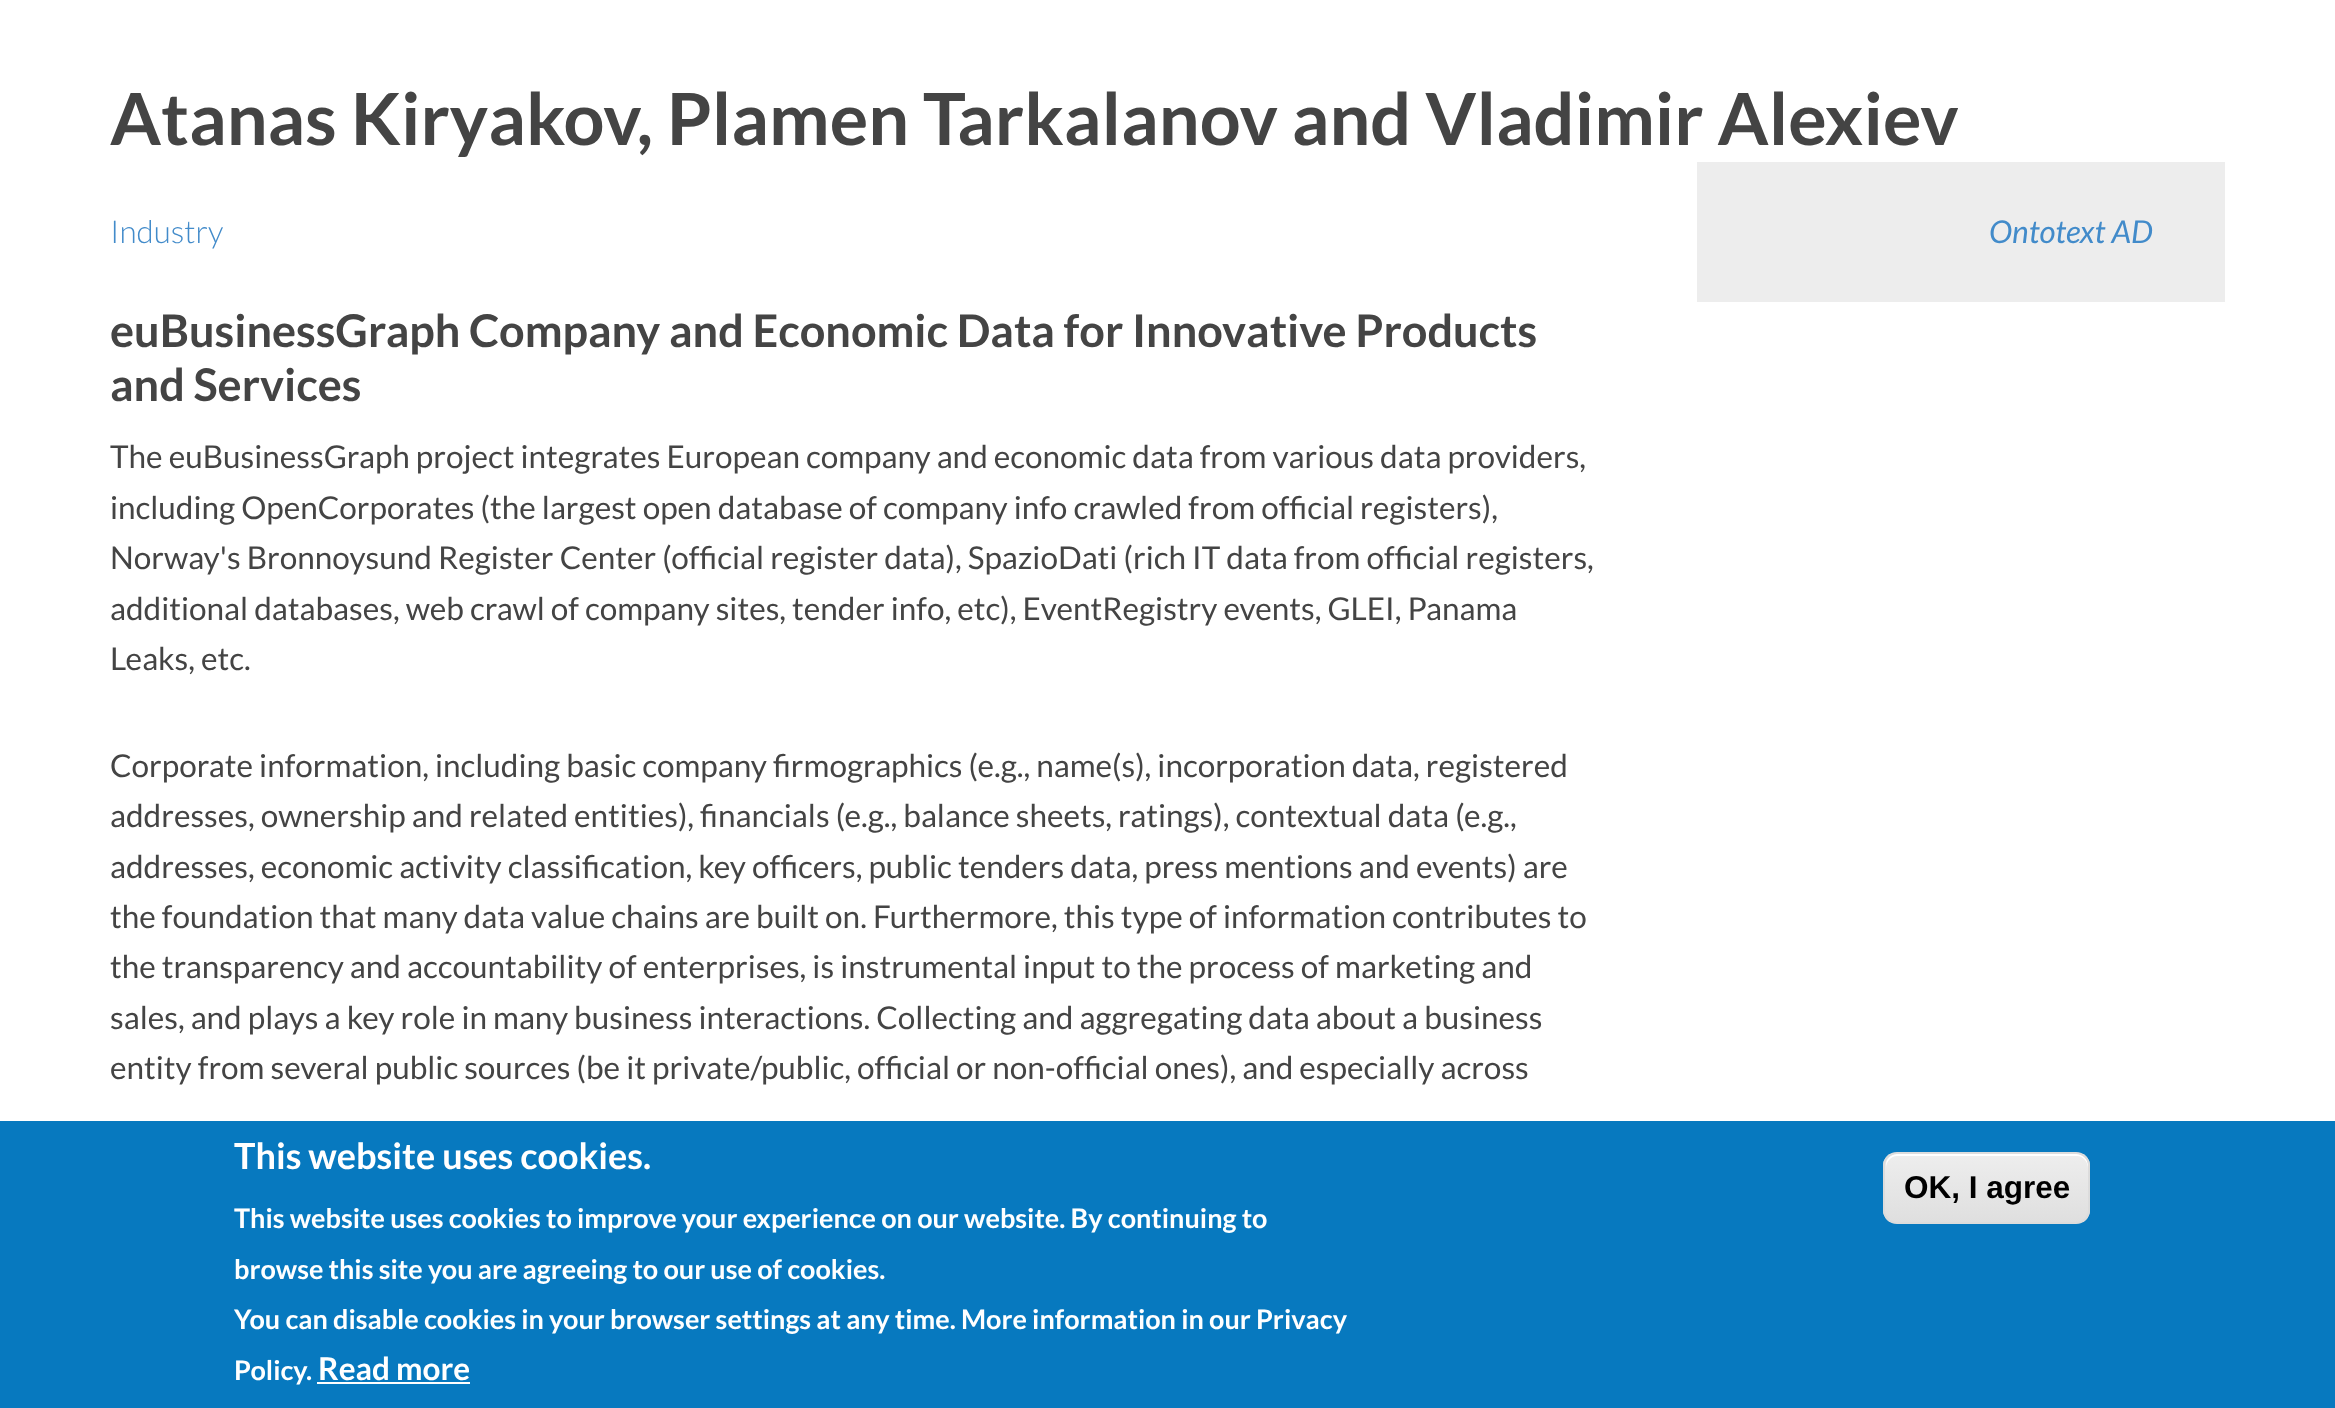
<svg xmlns="http://www.w3.org/2000/svg" width="2335" height="1408" viewBox="0 0 2335 1408">
  <style>
    .t1 { font: bold 72px Lato; fill: #444; }
    .t2 { font: 300 31.5px Lato; fill: #428bca; }
    .t3 { font: bold 45px Lato; fill: #444; }
    .t4 { font: 31.5px Lato; fill: #444; }
    .t5 { font: italic 31.5px Lato; fill: #428bca; }
    .t6 { font: bold 36px Lato; fill: #fff; }
    .t7 { font: bold 27px Lato; fill: #fff; }
    .t8 { font: bold 31.5px Lato; fill: #fff; }
    .t9 { font: bold 31.5px Liberation Sans; fill: #000; }
  </style>
  <defs>
    <clipPath id="clip1"><rect x="1883" y="1152" width="207" height="72" rx="14"/></clipPath>
    <linearGradient id="g1" gradientUnits="userSpaceOnUse" x1="1987" y1="1154" x2="1987" y2="1222"><stop offset="0.05" stop-color="#ededed"/><stop offset="1" stop-color="#dfdfdf"/></linearGradient>
  </defs>
  <rect width="100%" height="100%" fill="#fff"/>
  <text x="110" y="145" class="t1">Atanas Kiryakov, Plamen Tarkalanov and Vladimir Alexiev</text>
  <text x="110" y="243" class="t2">Industry</text>
  <text x="110" y="347" class="t3">euBusinessGraph Company and Economic Data for Innovative Products</text>
  <text x="110" y="401" class="t3">and Services</text>
  <text x="110" y="468" class="t4">The euBusinessGraph project integrates European company and economic data from various data providers,</text>
  <text x="110" y="519" class="t4">including OpenCorporates (the largest open database of company info crawled from official registers),</text>
  <text x="110" y="569" class="t4">Norway's Bronnoysund Register Center (official register data), SpazioDati (rich IT data from official registers,</text>
  <text x="110" y="620" class="t4">additional databases, web crawl of company sites, tender info, etc), EventRegistry events, GLEI, Panama</text>
  <text x="110" y="670" class="t4">Leaks, etc.</text>
  <text x="110" y="777" class="t4">Corporate information, including basic company firmographics (e.g., name(s), incorporation data, registered</text>
  <text x="110" y="827" class="t4">addresses, ownership and related entities), financials (e.g., balance sheets, ratings), contextual data (e.g.,</text>
  <text x="110" y="878" class="t4">addresses, economic activity classification, key officers, public tenders data, press mentions and events) are</text>
  <text x="110" y="928" class="t4">the foundation that many data value chains are built on. Furthermore, this type of information contributes to</text>
  <text x="110" y="978" class="t4">the transparency and accountability of enterprises, is instrumental input to the process of marketing and</text>
  <text x="110" y="1029" class="t4">sales, and plays a key role in many business interactions. Collecting and aggregating data about a business</text>
  <text x="110" y="1079" class="t4">entity from several public sources (be it private/public, official or non-official ones), and especially across</text>
  <rect x="1697" y="162" width="528" height="140" fill="#ededed"/>
  <text x="1989" y="243" class="t5">Ontotext AD</text>
  <rect x="0" y="1121" width="2335" height="287" fill="#0779bf"/>
  <text x="234" y="1169" class="t6">This website uses cookies.</text>
  <text x="234" y="1228" class="t7">This website uses cookies to improve your experience on our website. By continuing to</text>
  <text x="234" y="1279" class="t7">browse this site you are agreeing to our use of cookies.</text>
  <text x="234" y="1329" class="t7">You can disable cookies in your browser settings at any time. More information in our Privacy</text>
  <text x="234" y="1380" class="t7">Policy.</text>
  <text x="318" y="1380" class="t8">Read more</text>
  <rect x="317" y="1382" width="153" height="2" fill="#fff"/>
  <g clip-path="url(#clip1)">
    <rect x="1883" y="1154" width="207" height="68" fill="url(#g1)"/>
  </g>
  <path d="M1897 1156H2077C2083 1156 2088 1162 2088 1168V1165C2088 1159 2083 1154 2077 1154H1897C1891 1154 1886 1159 1886 1165V1168C1886 1162 1891 1156 1897 1156Z" fill="#fff"/>
  <rect x="1884" y="1153" width="205" height="70" rx="13" fill="none" stroke="#dcdcdc" stroke-width="2"/>
  <text x="1904" y="1198" class="t9">OK, I agree</text>
</svg>
